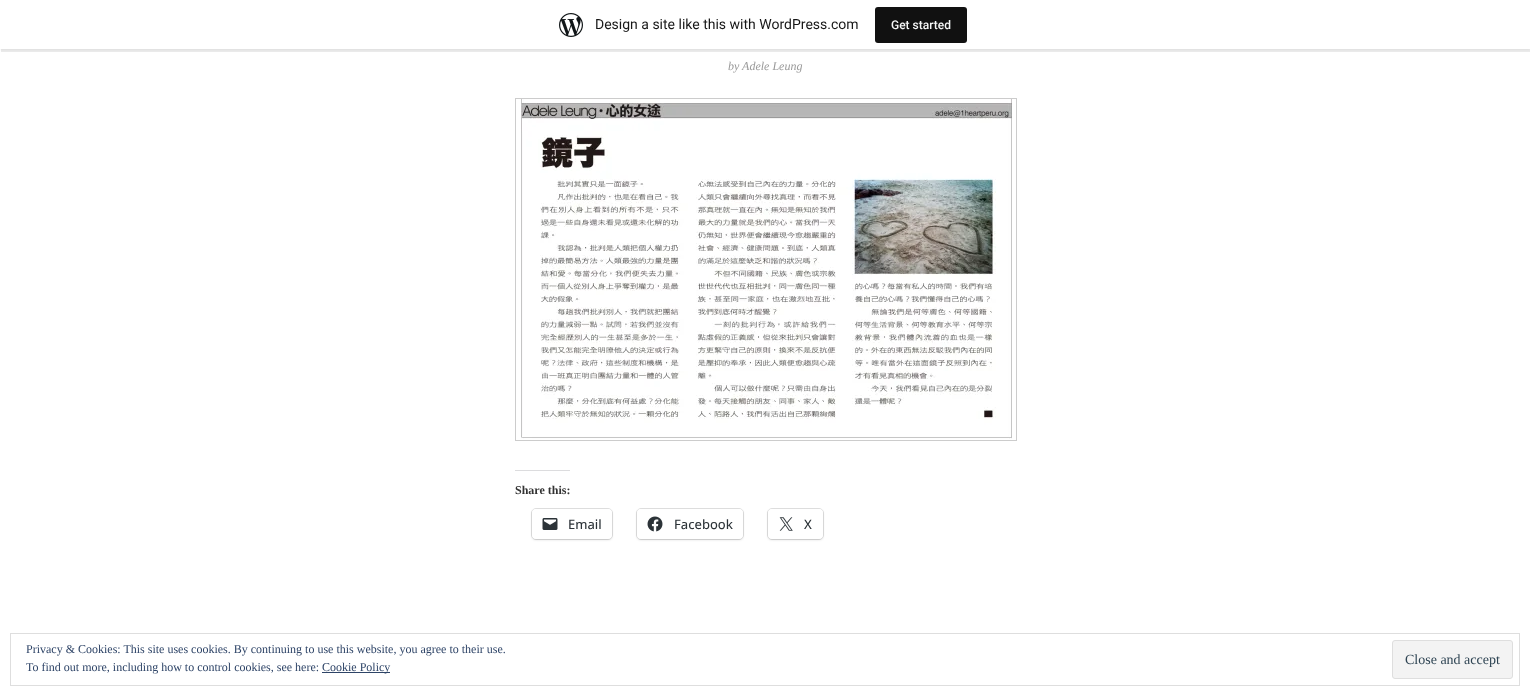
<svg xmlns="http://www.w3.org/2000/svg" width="1530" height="696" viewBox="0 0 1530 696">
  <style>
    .t1 { font: 14px Roboto; fill: #171717; }
    .t2 { font: 500 12px Roboto; fill: #f6f7f7; }
    .t3 { font: italic 12px Liberation Serif; fill: #999; }
    .t4 { font: bold 12px Liberation Serif; fill: #333; }
    .t5 { font: 500 13px Open Sans; fill: #2c3338; }
    .t6 { font: 12px Liberation Serif; fill: #2e4467; }
    .t7 { font: 14px Liberation Serif; fill: #2e4453; }
  </style>
  <rect width="100%" height="100%" fill="#fff"/>
  <rect x="0" y="1" width="1530" height="49" fill="#0000000d" filter="blur(1px)"/>
  <path d="M1 49V52H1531V3H1530V49Z" fill="#00000014"/>
  <rect x="0" y="0" width="1530" height="49" fill="#fff"/>
  <image x="559" y="13" width="24" height="24" href="images/1.png"/>
  <text x="595" y="29" class="t1">Design a site like this with WordPress.com</text>
  <rect x="875" y="7" width="92" height="36" rx="3" fill="#111"/>
  <text x="891" y="29" class="t2">Get started</text>
  <text x="728" y="70" class="t3">by Adele Leung</text>
  <rect x="515.5" y="98.5" width="501" height="342" fill="none" stroke="#ccc"/>
  <image x="521" y="99" width="491" height="340" href="images/2.png"/>
  <rect x="515" y="470" width="55" height="1" fill="#dcdcde"/>
  <text x="515" y="494" class="t4">Share this:</text>
  <rect x="531.5" y="508.5" width="81" height="31" rx="4.5" fill="none" stroke="#e0e0e0"/>
  <rect x="532" y="510" width="80" height="30" rx="4" fill="#0000001f" filter="blur(1px)"/>
  <rect x="532" y="509" width="80" height="30" rx="4" fill="#fff"/>
  <image x="542" y="518" width="16" height="12" href="images/3.png"/>
  <text x="568" y="529" class="t5">Email</text>
  <rect x="636.5" y="508.5" width="107" height="31" rx="4.5" fill="none" stroke="#e0e0e0"/>
  <rect x="637" y="510" width="106" height="30" rx="4" fill="#0000001f" filter="blur(1px)"/>
  <rect x="637" y="509" width="106" height="30" rx="4" fill="#fff"/>
  <image x="647" y="516" width="16" height="16" href="images/4.png"/>
  <text x="674" y="529" class="t5">Facebook</text>
  <rect x="767.5" y="508.5" width="56" height="31" rx="4.5" fill="none" stroke="#e0e0e0"/>
  <rect x="768" y="510" width="55" height="30" rx="4" fill="#0000001f" filter="blur(1px)"/>
  <rect x="768" y="509" width="55" height="30" rx="4" fill="#fff"/>
  <image x="779" y="517" width="14" height="14" href="images/5.png"/>
  <text x="804" y="529" class="t5">X</text>
  <rect x="10.5" y="633.5" width="1509" height="52" fill="none" stroke="#dedede"/>
  <text x="26" y="653" class="t6">Privacy &amp; Cookies: This site uses cookies. By continuing to use this website, you agree to their use.</text>
  <text x="26" y="671" class="t6">To find out more, including how to control cookies, see here:</text>
  <rect x="322" y="672" width="68" height="1" fill="#2e4467"/>
  <text x="322" y="671" class="t6">Cookie Policy</text>
  <rect x="1392.5" y="640.5" width="120" height="38" rx="2.5" fill="#f3f3f3" stroke="#dedede"/>
  <text x="1405" y="664" class="t7">Close and accept</text>
</svg>
